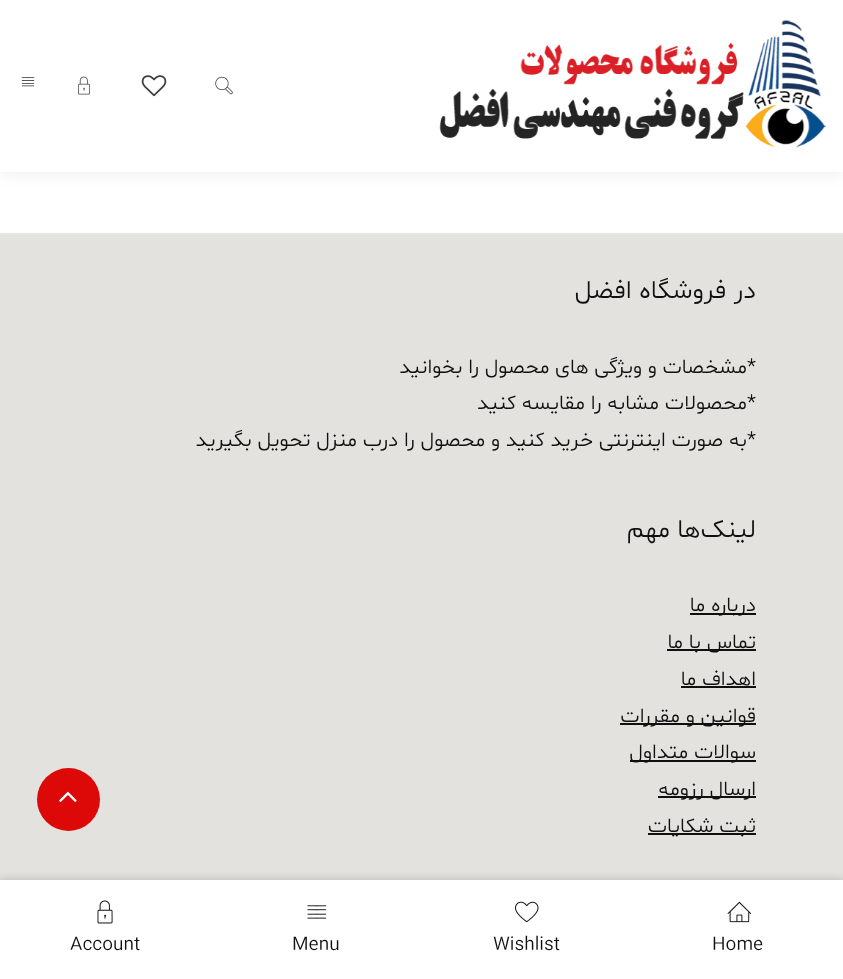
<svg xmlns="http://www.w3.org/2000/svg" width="843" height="979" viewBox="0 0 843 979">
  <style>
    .t1 { font: 300 26.25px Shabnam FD; direction: rtl; fill: #101010; }
    .t2 { font: 300 21px Shabnam FD; fill: #101010; }
    .t3 { font: 300 21px Shabnam FD; direction: rtl; fill: #101010; }
    .t4 { font: 300 19px Shabnam FD; fill: #101010; }
  </style>
  <rect width="100%" height="100%" fill="#fff"/>
  <rect x="0" y="0" width="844" height="172" fill="#00000014" filter="blur(9px)"/>
  <rect x="0" y="0" width="843" height="172" fill="#fff"/>
  <image x="439" y="20" width="387" height="128" href="images/1.png"/>
  <image x="215" y="76" width="18" height="19" href="images/2.png"/>
  <image x="141" y="75" width="26" height="22" href="images/3.png"/>
  <image x="78" y="76" width="12" height="19" href="images/4.png"/>
  <image x="21" y="77" width="14" height="10" href="images/5.png"/>
  <rect x="0" y="233" width="843" height="2" fill="#e5e5e5"/>
  <rect x="0" y="235" width="843" height="645" fill="#e3e2df"/>
  <text x="756" y="298" class="t1">در فروشگاه افضل</text>
  <text x="747" y="373" class="t2">*</text>
  <text x="747" y="373" class="t3">مشخصات و ویژگی های محصول را بخوانید</text>
  <text x="756" y="409" class="t3">*محصولات مشابه را مقایسه کنید</text>
  <text x="756" y="446" class="t3">*به صورت اینترنتی خرید کنید و محصول را درب منزل تحویل بگیرید</text>
  <text x="756" y="537" class="t1">لینک‌ها مهم</text>
  <rect x="690" y="613" width="66" height="2" fill="#101010"/>
  <text x="756" y="611" class="t3">درباره ما</text>
  <rect x="667" y="649" width="89" height="2" fill="#101010"/>
  <text x="756" y="648" class="t3">تماس با ما</text>
  <text x="756" y="685" class="t3">اهداف ما</text>
  <rect x="681" y="686" width="75" height="2" fill="#101010"/>
  <rect x="620" y="723" width="136" height="2" fill="#101010"/>
  <text x="756" y="722" class="t3">قوانین و مقررات</text>
  <rect x="630" y="760" width="126" height="2" fill="#101010"/>
  <text x="756" y="758" class="t3">سوالات متداول</text>
  <rect x="658" y="796" width="98" height="2" fill="#101010"/>
  <text x="756" y="795" class="t3">ارسال رزومه</text>
  <rect x="648" y="833" width="108" height="2" fill="#101010"/>
  <text x="756" y="832" class="t3">ثبت شکایات</text>
  <circle cx="68.5" cy="799.5" r="31.5" fill="#dd0808"/>
  <image x="59" y="791" width="18" height="11" href="images/6.png"/>
  <rect x="0" y="880" width="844" height="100" fill="#00000033" filter="blur(4.5px)"/>
  <rect x="0" y="880" width="843" height="99" fill="#fff"/>
  <image x="727" y="901" width="25" height="22" href="images/7.png"/>
  <text x="712" y="950" class="t4">Home</text>
  <image x="515" y="901" width="24" height="22" href="images/8.png"/>
  <text x="493" y="950" class="t4">Wishlist</text>
  <image x="307" y="905" width="20" height="14" href="images/9.png"/>
  <text x="292" y="950" class="t4">Menu</text>
  <image x="97" y="900" width="16" height="24" href="images/10.png"/>
  <text x="70" y="950" class="t4">Account</text>
</svg>
